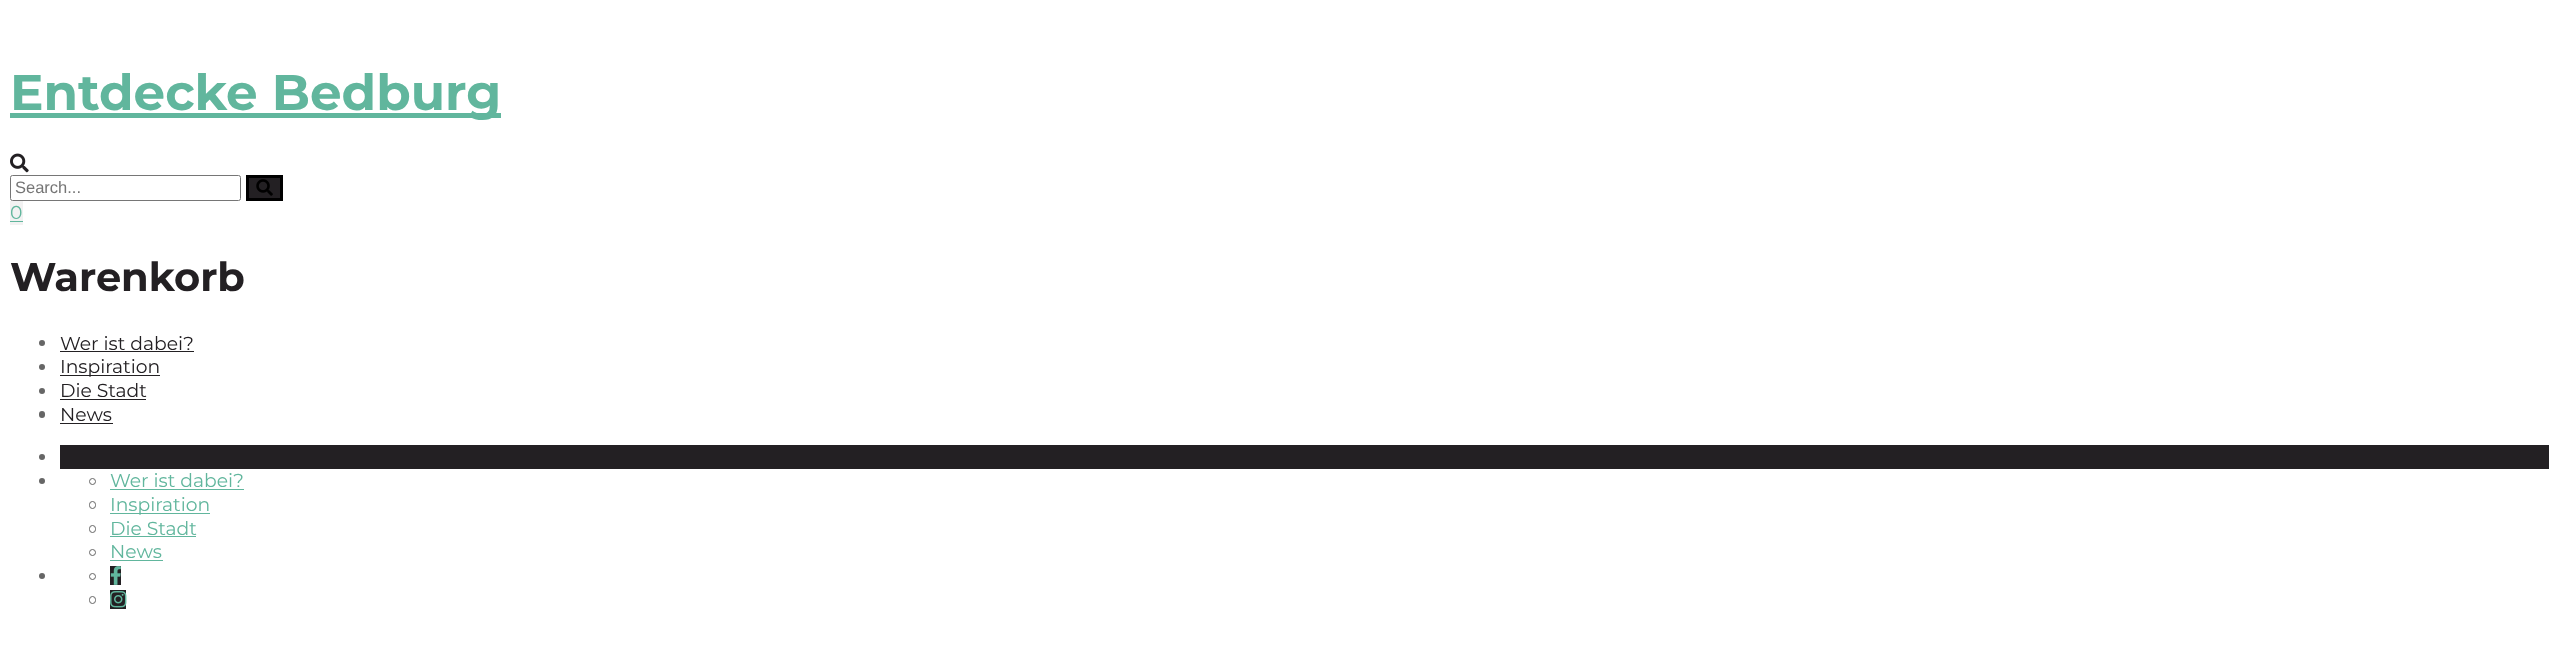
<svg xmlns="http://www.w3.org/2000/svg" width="2558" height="657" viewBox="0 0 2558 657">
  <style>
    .t1 { font: bold 50px Montserrat; fill: #61b69d; }
    .t2 { font: 16.5px Liberation Sans; fill: #757575; }
    .t3 { font: 18.75px Montserrat; fill: #61b69d; }
    .t4 { font: bold 40px Montserrat; fill: #232023; }
    .t5 { font: 18.75px Montserrat; fill: #232023; }
  </style>
  <rect width="100%" height="100%" fill="#fff"/>
  <rect x="10" y="113" width="491" height="5" fill="#61b69d"/>
  <text x="10" y="110" class="t1">Entdecke Bedburg</text>
  <image x="10" y="153" width="19" height="20" href="images/1.png"/>
  <rect x="10.5" y="175.5" width="230" height="25" rx="2" fill="none" stroke="#767676"/>
  <text x="15" y="193" class="t2">Search...</text>
  <rect x="247.5" y="176.5" width="34" height="23" fill="#232023" stroke="#000" stroke-width="3"/>
  <image x="256" y="179" width="17" height="17" href="images/2.png"/>
  <rect x="10" y="201" width="13" height="24" fill="#f2f2f2"/>
  <text x="10" y="219" class="t3">0</text>
  <rect x="10" y="221" width="13" height="1" fill="#61b69d"/>
  <text x="10" y="291" class="t4">Warenkorb</text>
  <circle cx="42" cy="343" r="3" fill="#666"/>
  <text x="60" y="350" class="t5">Wer ist dabei?</text>
  <rect x="60" y="351" width="134" height="1" fill="#232023"/>
  <circle cx="42" cy="367" r="3" fill="#666"/>
  <rect x="60" y="375" width="100" height="1" fill="#232023"/>
  <text x="60" y="373" class="t5">Inspiration</text>
  <circle cx="42" cy="391" r="3" fill="#666"/>
  <text x="60" y="397" class="t5">Die Stadt</text>
  <rect x="60" y="399" width="86" height="1" fill="#232023"/>
  <rect x="39" y="411" width="6" height="7" rx="3" fill="#666"/>
  <text x="60" y="421" class="t5">News</text>
  <rect x="60" y="423" width="53" height="1" fill="#232023"/>
  <rect x="60" y="445" width="2489" height="24" fill="#232023"/>
  <circle cx="42" cy="457" r="3" fill="#666"/>
  <circle cx="42" cy="481" r="3" fill="#666"/>
  <circle cx="92.5" cy="481.5" r="3" fill="none" stroke="#666"/>
  <text x="110" y="487" class="t3">Wer ist dabei?</text>
  <rect x="110" y="489" width="134" height="1" fill="#61b69d"/>
  <rect x="89.5" y="501.5" width="6" height="7" rx="3" fill="none" stroke="#666"/>
  <rect x="110" y="513" width="100" height="1" fill="#61b69d"/>
  <text x="110" y="511" class="t3">Inspiration</text>
  <rect x="89.5" y="525.5" width="6" height="7" rx="3" fill="none" stroke="#666"/>
  <text x="110" y="535" class="t3">Die Stadt</text>
  <rect x="110" y="536" width="86" height="1" fill="#61b69d"/>
  <circle cx="92.5" cy="552.5" r="3" fill="none" stroke="#666"/>
  <text x="110" y="558" class="t3">News</text>
  <rect x="110" y="560" width="53" height="1" fill="#61b69d"/>
  <circle cx="42" cy="576" r="3" fill="#666"/>
  <circle cx="92.5" cy="576.5" r="3" fill="none" stroke="#666"/>
  <rect x="110" y="566" width="11" height="19" fill="#232023"/>
  <image x="110" y="566" width="11" height="19" href="images/3.png"/>
  <rect x="89.5" y="596.5" width="6" height="7" rx="3" fill="none" stroke="#666"/>
  <rect x="110" y="590" width="16" height="19" fill="#232023"/>
  <image x="110" y="591" width="17" height="17" href="images/4.png"/>
</svg>
